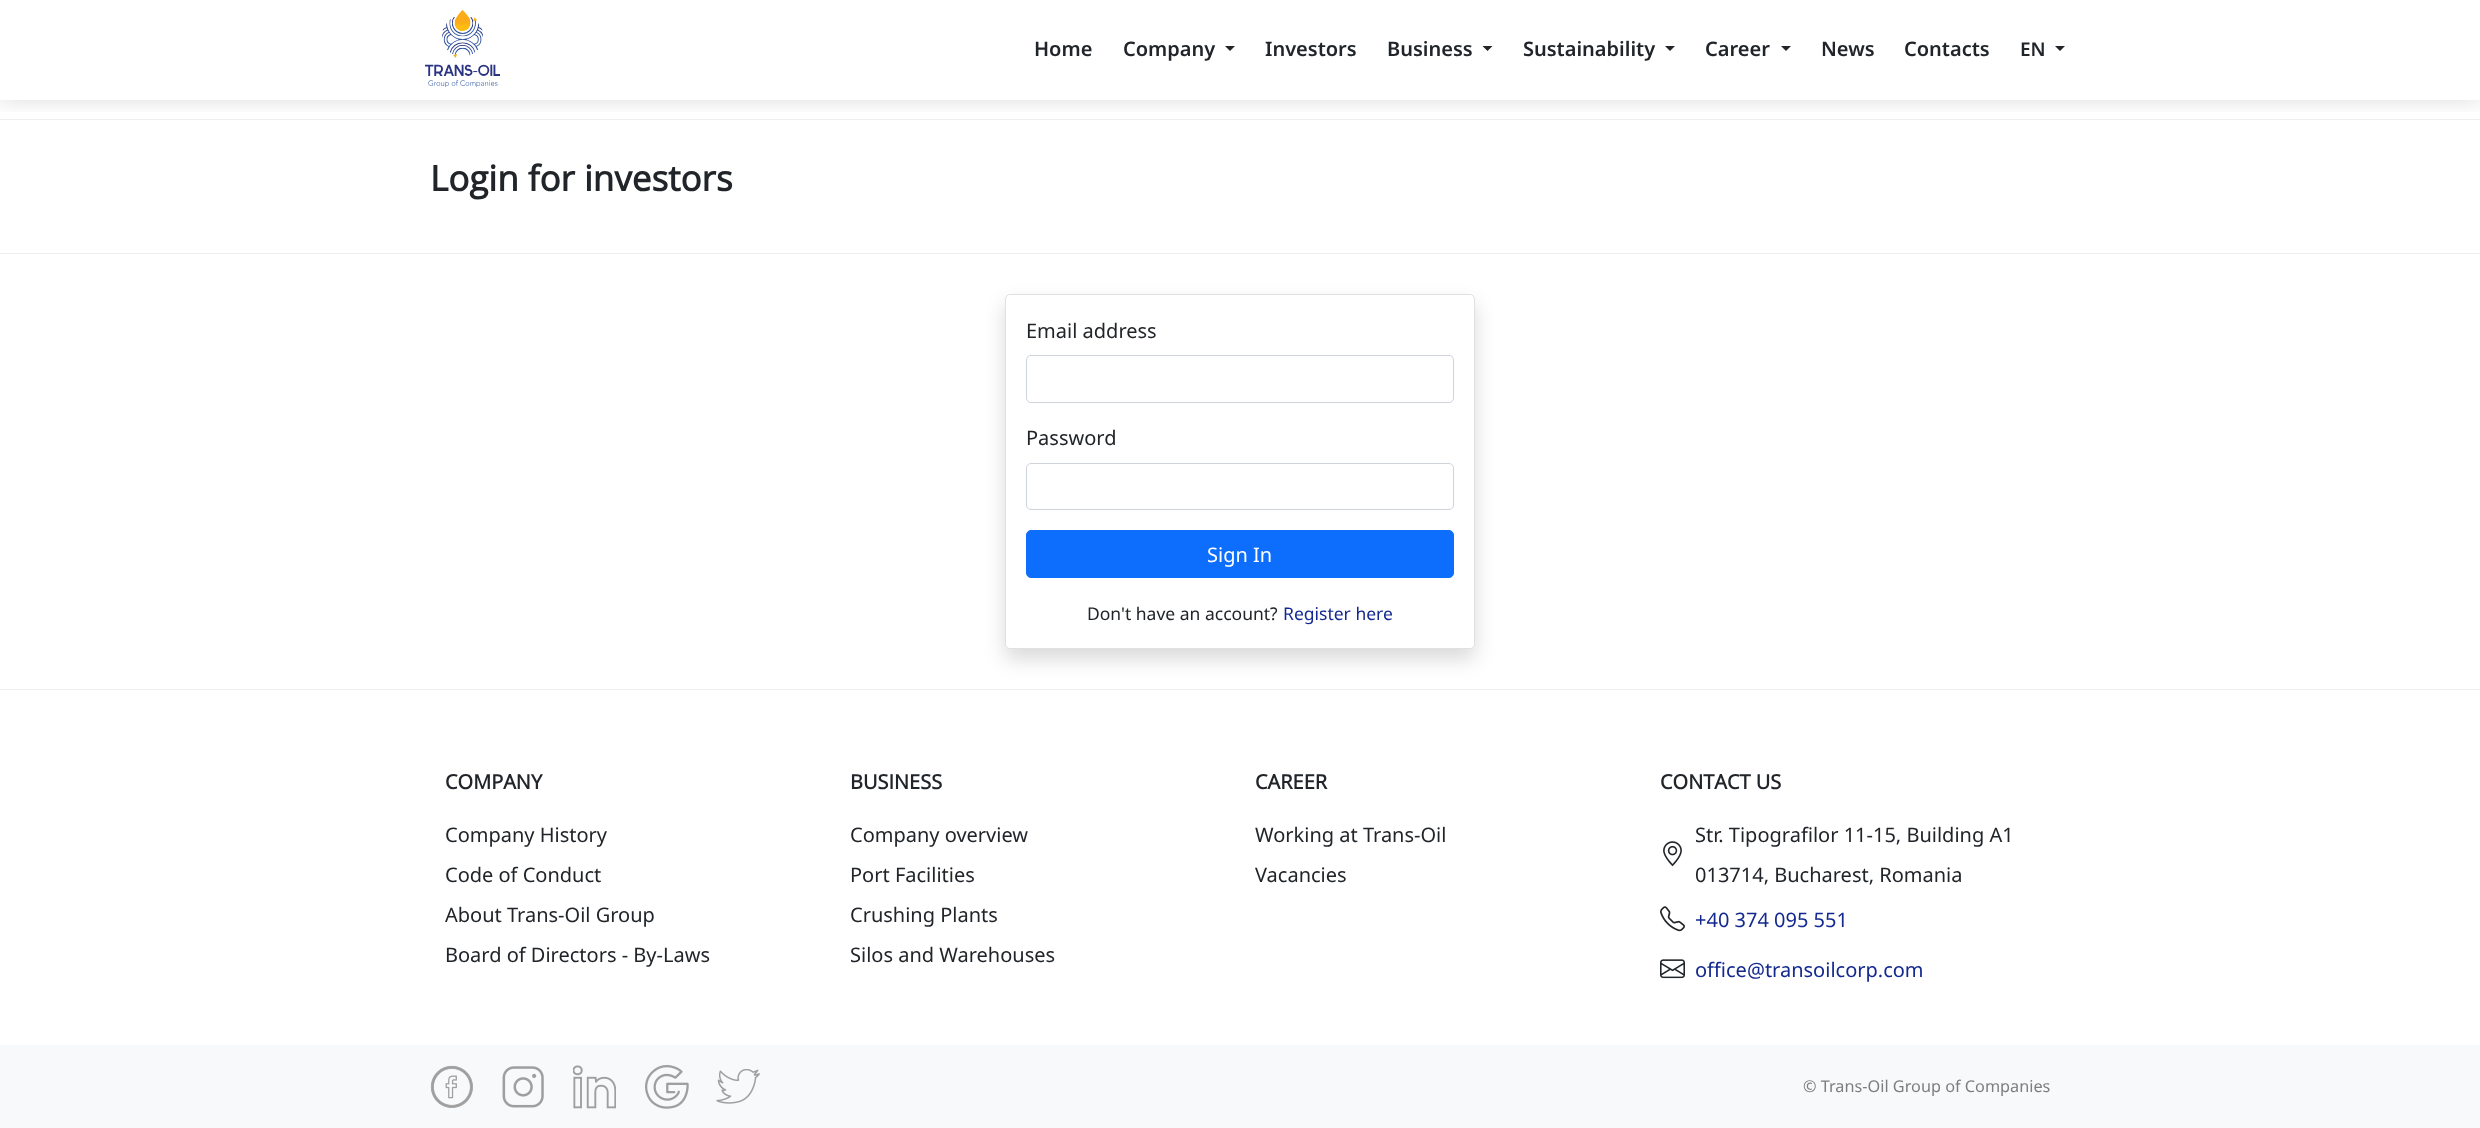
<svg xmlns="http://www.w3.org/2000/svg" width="2480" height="1128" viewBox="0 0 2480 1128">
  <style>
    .t1 { font: 600 20px Noto Sans; fill: #212529; }
    .t2 { font: 600 19px Noto Sans; fill: #212529; }
    .t3 { font: bold 35px Open Sans; fill: #212529; }
    .t4 { font: 20px Noto Sans; fill: #212529; }
    .t5 { font: 20px Noto Sans; fill: #fff; }
    .t6 { font: 17.5px Noto Sans; fill: #212529; }
    .t7 { font: 17.5px Noto Sans; fill: #14298f; }
    .t8 { font: bold 20px Open Sans; fill: #212529; }
    .t9 { font: 20px Noto Sans; fill: #14298f; }
    .t10 { font: 16.25px Noto Sans; fill: #7e7e7e; }
  </style>
  <defs>
    <clipPath id="clip1"><rect x="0" y="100" width="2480" height="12"/></clipPath>
  </defs>
  <rect width="100%" height="100%" fill="#fff"/>
  <rect x="0" y="119" width="2480" height="1" fill="#eee"/>
  <g clip-path="url(#clip1)">
    <rect x="0" y="0" width="2480" height="100" fill="#00000024" filter="blur(11px)"/>
  </g>
  <image x="425" y="10" width="75" height="78" href="images/1.png"/>
  <text x="1034" y="56" class="t1">Home</text>
  <text x="1123" y="56" class="t1">Company</text>
  <path d="M1225 46H1235L1230 51Z" fill="#212529"/>
  <text x="1265" y="56" class="t1">Investors</text>
  <text x="1387" y="56" class="t1">Business</text>
  <path d="M1482.5 46H1492.5L1487.5 51Z" fill="#212529"/>
  <text x="1523" y="56" class="t1">Sustainability</text>
  <path d="M1665 46H1675L1670 51Z" fill="#212529"/>
  <text x="1705" y="56" class="t1">Сareer</text>
  <path d="M1781 46H1791L1786 51Z" fill="#212529"/>
  <text x="1821" y="56" class="t1">News</text>
  <text x="1904" y="56" class="t1">Contacts</text>
  <text x="2020" y="56" class="t2">EN</text>
  <path d="M2055 46H2065L2060 51Z" fill="#212529"/>
  <text x="430" y="191" class="t3">Login for investors</text>
  <rect x="0" y="253" width="2480" height="1" fill="#eee"/>
  <rect x="1005" y="304" width="470" height="355" rx="5" fill="#00000026" filter="blur(10px)"/>
  <rect x="1005" y="294" width="470" height="355" rx="5" fill="#fff"/>
  <rect x="1005.5" y="294.5" width="469" height="354" rx="4.5" fill="none" stroke="#0000001f"/>
  <text x="1026" y="338" class="t4">Email address</text>
  <rect x="1026.5" y="355.5" width="427" height="47" rx="4.5" fill="none" stroke="#ced4da"/>
  <text x="1026" y="445" class="t4">Password</text>
  <rect x="1026.5" y="463.5" width="427" height="46" rx="4.5" fill="none" stroke="#ced4da"/>
  <rect x="1026.5" y="530.5" width="427" height="47" rx="4.5" fill="#0d6efd" stroke="#0d6efd"/>
  <text x="1207" y="562" class="t5">Sign In</text>
  <text x="1087" y="620" class="t6">Don't have an account?</text>
  <text x="1283" y="620" class="t7">Register here</text>
  <rect x="0" y="689" width="2480" height="1" fill="#eee"/>
  <text x="445" y="789" class="t8">COMPANY</text>
  <text x="445" y="842" class="t4">Company History</text>
  <text x="445" y="882" class="t4">Code of Conduct</text>
  <text x="445" y="922" class="t4">About Trans-Oil Group</text>
  <text x="445" y="962" class="t4">Board of Directors - By-Laws</text>
  <text x="850" y="789" class="t8">BUSINESS</text>
  <text x="850" y="842" class="t4">Company overview</text>
  <text x="850" y="882" class="t4">Port Facilities</text>
  <text x="850" y="922" class="t4">Crushing Plants</text>
  <text x="850" y="962" class="t4">Silos and Warehouses</text>
  <text x="1255" y="789" class="t8">СAREER</text>
  <text x="1255" y="842" class="t4">Working at Trans-Oil</text>
  <text x="1255" y="882" class="t4">Vacancies</text>
  <text x="1660" y="789" class="t8">CONTACT US</text>
  <text x="1695" y="842" class="t4">Str. Tipografilor 11-15, Building A1</text>
  <image x="1663" y="841" width="19" height="26" href="images/2.png"/>
  <text x="1695" y="882" class="t4">013714, Bucharest, Romania</text>
  <image x="1660" y="906" width="25" height="26" href="images/3.png"/>
  <text x="1695" y="927" class="t9">+40 374 095 551</text>
  <image x="1660" y="959" width="25" height="20" href="images/4.png"/>
  <text x="1695" y="977" class="t9">office@transoilcorp.com</text>
  <rect x="0" y="1045" width="2480" height="83" fill="#f8f9fa"/>
  <image x="430" y="1065" width="43" height="43" href="images/5.png"/>
  <image x="502" y="1066" width="42" height="42" href="images/6.png"/>
  <image x="573" y="1065" width="43" height="44" href="images/7.png"/>
  <image x="645" y="1065" width="44" height="44" href="images/8.png"/>
  <image x="716" y="1069" width="44" height="35" href="images/9.png"/>
  <text x="1803" y="1092" class="t10">© Trans-Oil Group of Companies</text>
</svg>
